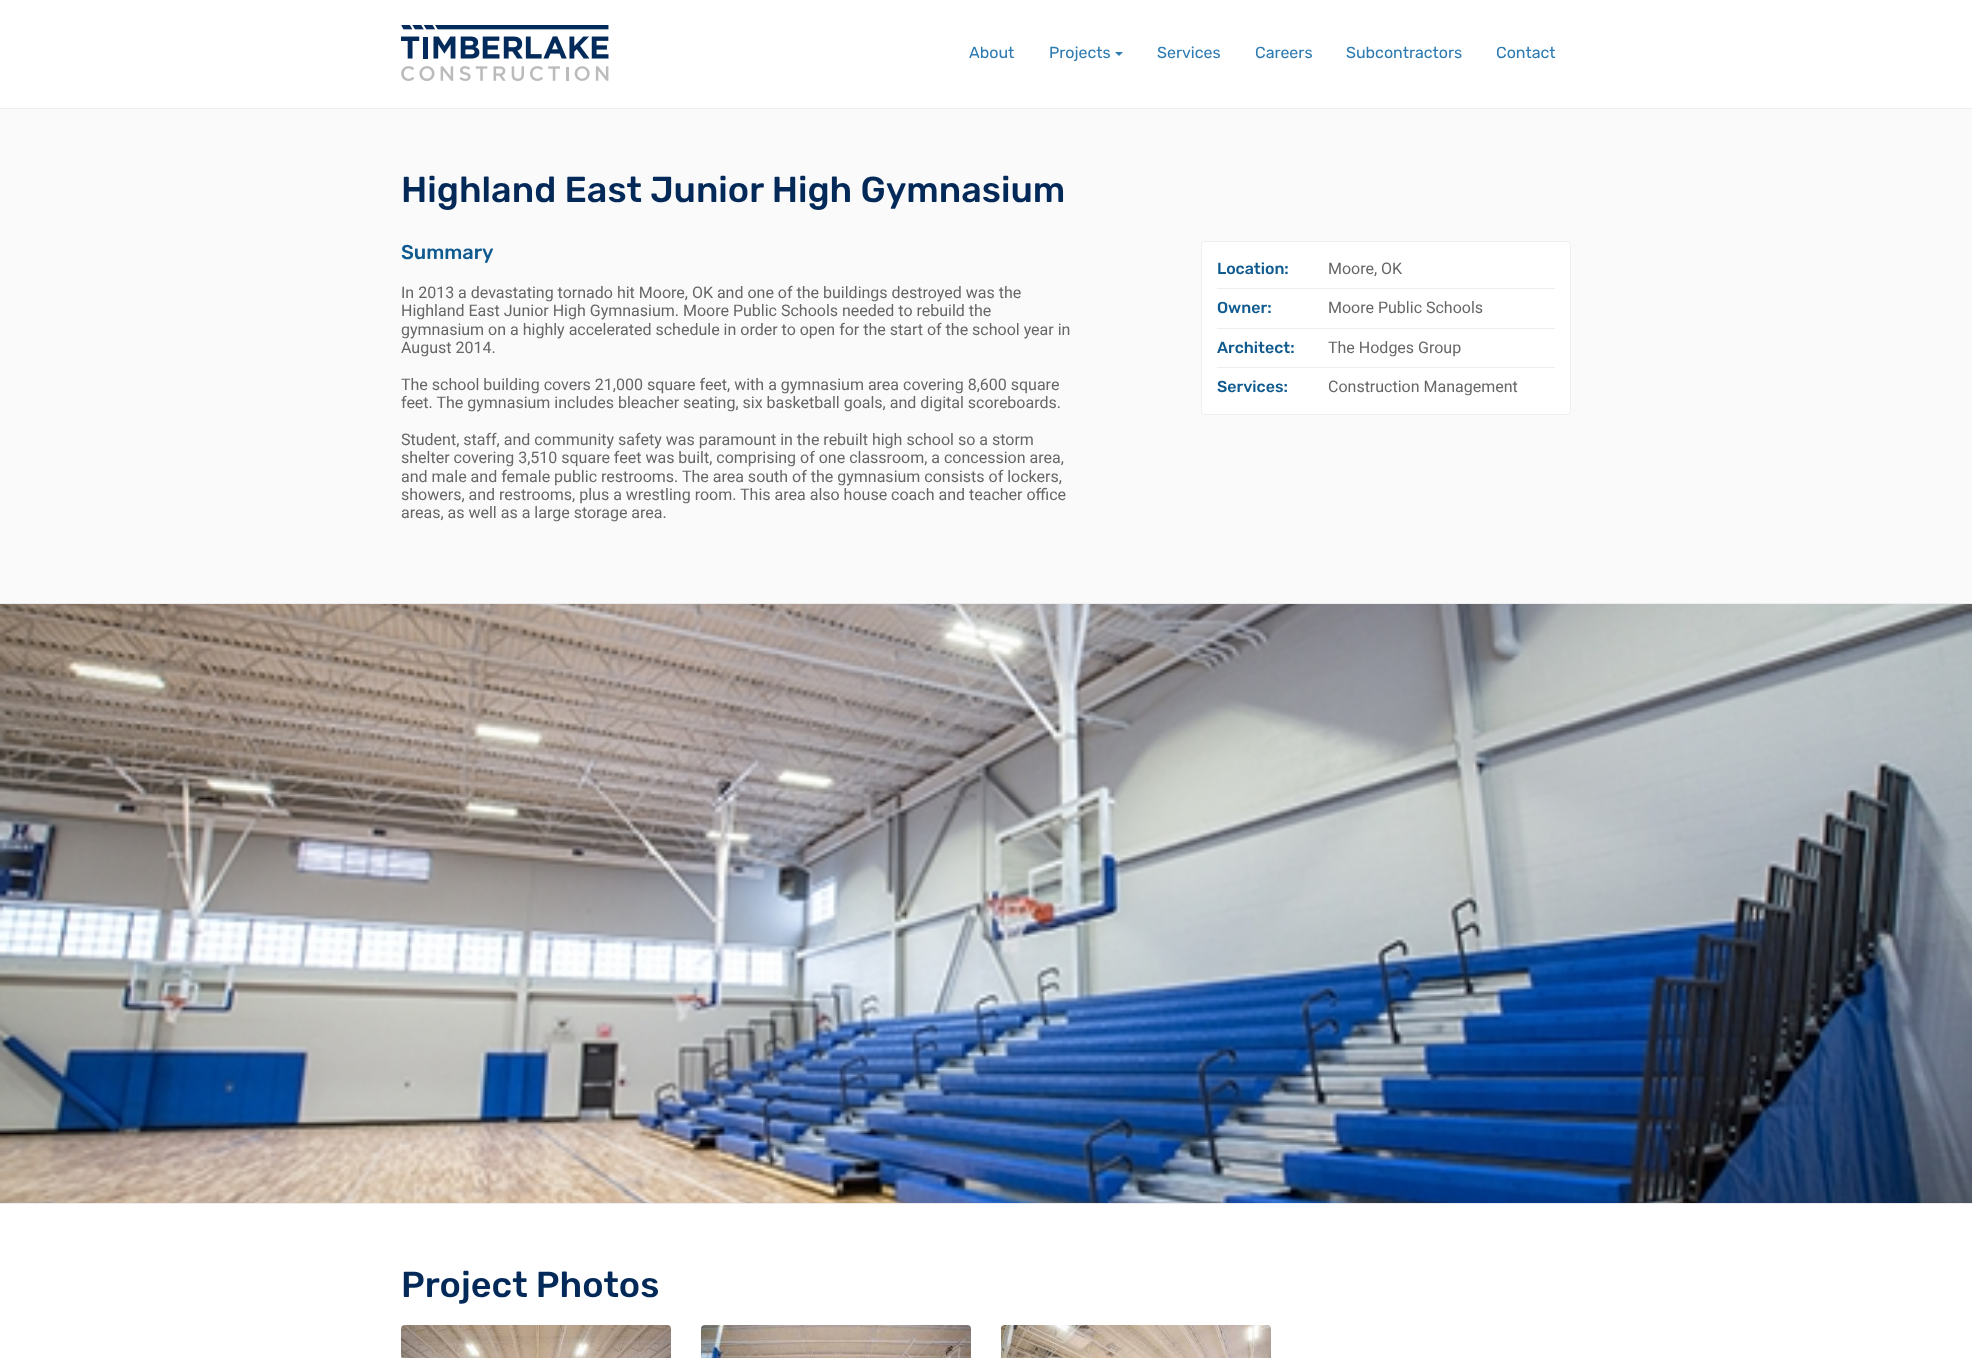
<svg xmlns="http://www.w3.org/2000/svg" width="1972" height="1358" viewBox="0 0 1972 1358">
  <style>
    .t1 { font: 16px Rubik; fill: #2d7bb2; }
    .t2 { font: 500 36px Rubik; fill: #032959; }
    .t3 { font: 500 20px Rubik; fill: #0f5a8f; }
    .t4 { font: 16px Roboto; fill: #666; }
    .t5 { font: 500 16px Rubik; fill: #0f5a8f; }
  </style>
  <rect width="100%" height="100%" fill="#fafafa"/>
  <rect x="0" y="0" width="1972" height="108" fill="#fff"/>
  <rect x="0" y="108" width="1972" height="1" fill="#eee"/>
  <image x="401" y="25" width="208" height="56" href="images/1.png"/>
  <text x="969" y="58" class="t1">About</text>
  <text x="1049" y="58" class="t1">Projects</text>
  <path d="M1115 52H1123L1119 56Z" fill="#2d7bb2"/>
  <text x="1157" y="58" class="t1">Services</text>
  <text x="1255" y="58" class="t1">Careers</text>
  <text x="1346" y="58" class="t1">Subcontractors</text>
  <text x="1496" y="58" class="t1">Contact</text>
  <text x="401" y="202" class="t2">Highland East Junior High Gymnasium</text>
  <text x="401" y="259" class="t3">Summary</text>
  <text x="401" y="298" class="t4">In 2013 a devastating tornado hit Moore, OK and one of the buildings destroyed was the</text>
  <text x="401" y="316" class="t4">Highland East Junior High Gymnasium. Moore Public Schools needed to rebuild the</text>
  <text x="401" y="335" class="t4">gymnasium on a highly accelerated schedule in order to open for the start of the school year in</text>
  <text x="401" y="353" class="t4">August 2014.</text>
  <text x="401" y="390" class="t4">The school building covers 21,000 square feet, with a gymnasium area covering 8,600 square</text>
  <text x="401" y="408" class="t4">feet. The gymnasium includes bleacher seating, six basketball goals, and digital scoreboards.</text>
  <text x="401" y="445" class="t4">Student, staff, and community safety was paramount in the rebuilt high school so a storm</text>
  <text x="401" y="463" class="t4">shelter covering 3,510 square feet was built, comprising of one classroom, a concession area,</text>
  <text x="401" y="482" class="t4">and male and female public restrooms. The area south of the gymnasium consists of lockers,</text>
  <text x="401" y="500" class="t4">showers, and restrooms, plus a wrestling room. This area also house coach and teacher office</text>
  <text x="401" y="518" class="t4">areas, as well as a large storage area.</text>
  <rect x="1201.5" y="241.5" width="369" height="173" rx="3.5" fill="#fff" stroke="#eee"/>
  <rect x="1217" y="288" width="338" height="1" fill="#eee"/>
  <text x="1217" y="274" class="t5">Location:</text>
  <text x="1328" y="274" class="t4">Moore, OK</text>
  <rect x="1217" y="328" width="338" height="1" fill="#eee"/>
  <text x="1217" y="313" class="t5">Owner:</text>
  <text x="1328" y="313" class="t4">Moore Public Schools</text>
  <rect x="1217" y="367" width="338" height="1" fill="#eee"/>
  <text x="1217" y="353" class="t5">Architect:</text>
  <text x="1328" y="353" class="t4">The Hodges Group</text>
  <text x="1217" y="392" class="t5">Services:</text>
  <text x="1328" y="392" class="t4">Construction Management</text>
  <rect x="0" y="603" width="1972" height="1" fill="#eee"/>
  <image x="0" y="604" width="1972" height="599" href="images/2.png"/>
  <rect x="0" y="1204" width="1972" height="154" fill="#fff"/>
  <rect x="0" y="1203" width="1972" height="1" fill="#eee"/>
  <text x="401" y="1297" class="t2">Project Photos</text>
  <image x="401" y="1325" width="270" height="33" href="images/3.png"/>
  <image x="701" y="1325" width="270" height="33" href="images/4.png"/>
  <image x="1001" y="1325" width="270" height="33" href="images/5.png"/>
</svg>
